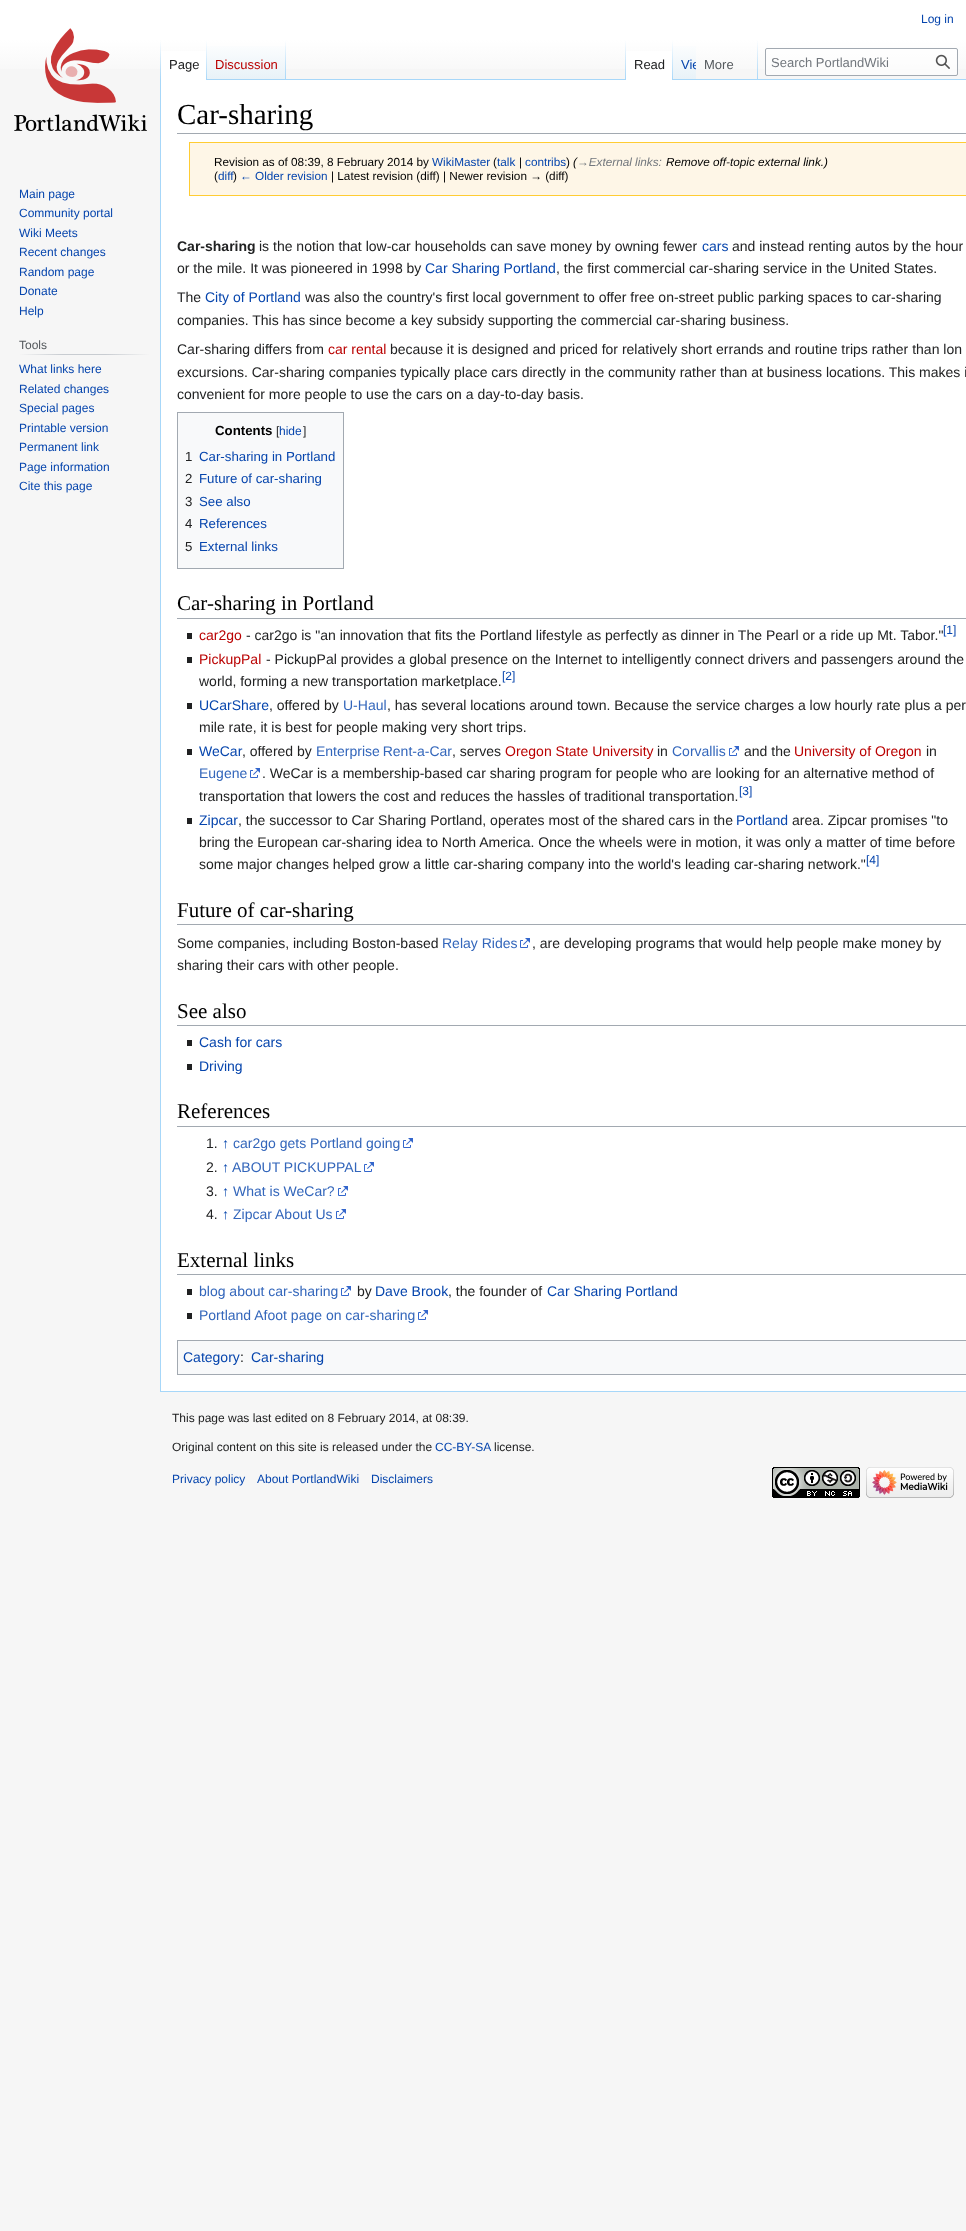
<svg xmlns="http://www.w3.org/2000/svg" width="966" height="2231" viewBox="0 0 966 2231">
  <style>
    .t1 { font: 12px Liberation Sans; fill: #0645ad; }
    .t2 { font: 13px Liberation Sans; fill: #202122; }
    .t3 { font: 13px Liberation Sans; fill: #ba0000; }
    .t4 { font: 13px Liberation Sans; fill: #0645ad; }
    .t5 { font: 13px Liberation Sans; fill: #54595d; }
    .t6 { font: 13px Liberation Sans; fill: #72777d; }
    .t7 { font: 12px Liberation Sans; fill: #54595d; }
    .t8 { font: 29px Liberation Serif; fill: #000; }
    .t9 { font: 11.75px Liberation Sans; fill: #000; }
    .t10 { font: 11.75px Liberation Sans; fill: #0645ad; }
    .t11 { font: italic 11.75px Liberation Sans; fill: #000; }
    .t12 { font: italic 11.75px Liberation Sans; fill: #72777d; }
    .t13 { font: bold 14px Liberation Sans; fill: #202122; }
    .t14 { font: 14px Liberation Sans; fill: #202122; }
    .t15 { font: 14px Liberation Sans; fill: #0645ad; }
    .t16 { font: 14px Liberation Sans; fill: #ba0000; }
    .t17 { font: bold 13.25px Liberation Sans; fill: #000; }
    .t18 { font: 12px Liberation Sans; fill: #202122; }
    .t19 { font: 13.25px Liberation Sans; fill: #202122; }
    .t20 { font: 13.25px Liberation Sans; fill: #0645ad; }
    .t21 { font: 21px Liberation Serif; fill: #000; }
    .t22 { font: 14px Liberation Sans; fill: #36b; }
  </style>
  <defs>
    <linearGradient id="g1" gradientUnits="userSpaceOnUse" x1="483" y1="0" x2="483" y2="80"><stop offset="0.5" stop-color="#fff"/><stop offset="1" stop-color="#f6f6f6"/></linearGradient>
    <linearGradient id="g2" gradientUnits="userSpaceOnUse" x1="161" y1="40" x2="161" y2="80"><stop offset="0" stop-color="#a7d7f9" stop-opacity="0"/><stop offset="1" stop-color="#a7d7f9"/></linearGradient>
    <linearGradient id="g3" gradientUnits="userSpaceOnUse" x1="207" y1="40" x2="207" y2="80"><stop offset="0" stop-color="#fff"/><stop offset="1" stop-color="#a7d7f9"/></linearGradient>
    <linearGradient id="g4" gradientUnits="userSpaceOnUse" x1="247" y1="80" x2="247" y2="40"><stop offset="0" stop-color="#77c1f6"/><stop offset="0.03" stop-color="#e8f2f8"/><stop offset="1" stop-color="#fff"/></linearGradient>
    <linearGradient id="g5" gradientUnits="userSpaceOnUse" x1="286" y1="40" x2="286" y2="80"><stop offset="0" stop-color="#a7d7f9" stop-opacity="0"/><stop offset="1" stop-color="#a7d7f9"/></linearGradient>
    <linearGradient id="g6" gradientUnits="userSpaceOnUse" x1="626" y1="40" x2="626" y2="80"><stop offset="0" stop-color="#a7d7f9" stop-opacity="0"/><stop offset="1" stop-color="#a7d7f9"/></linearGradient>
    <linearGradient id="g7" gradientUnits="userSpaceOnUse" x1="673" y1="40" x2="673" y2="80"><stop offset="0" stop-color="#fff"/><stop offset="1" stop-color="#a7d7f9"/></linearGradient>
    <linearGradient id="g8" gradientUnits="userSpaceOnUse" x1="685" y1="80" x2="685" y2="40"><stop offset="0" stop-color="#77c1f6"/><stop offset="0.03" stop-color="#e8f2f8"/><stop offset="1" stop-color="#fff"/></linearGradient>
    <clipPath id="clip1"><rect x="673" y="40" width="23" height="40"/></clipPath>
    <linearGradient id="g9" gradientUnits="userSpaceOnUse" x1="758" y1="40" x2="758" y2="80"><stop offset="0" stop-color="#a7d7f9" stop-opacity="0"/><stop offset="1" stop-color="#a7d7f9"/></linearGradient>
    <linearGradient id="g10" gradientUnits="userSpaceOnUse" x1="19" y1="355" x2="150" y2="355"><stop offset="0" stop-color="#f6f6f6"/><stop offset="0.33" stop-color="#c8ccd1"/><stop offset="0.66" stop-color="#c8ccd1"/><stop offset="1" stop-color="#f6f6f6"/></linearGradient>
  </defs>
  <rect width="100%" height="100%" fill="#f6f6f6"/>
  <rect x="0" y="0" width="966" height="69" fill="url(#g1)"/>
  <text x="921" y="23" class="t1">Log in</text>
  <rect x="160" y="1391" width="806" height="1" fill="#a7d7f9"/>
  <rect x="160" y="79" width="1" height="1313" fill="#a7d7f9"/>
  <rect x="160" y="40" width="1" height="40" fill="url(#g2)"/>
  <rect x="161" y="51" width="45" height="29" fill="#fff"/>
  <rect x="206" y="40" width="1" height="40" fill="url(#g3)"/>
  <text x="169" y="69" class="t2">Page</text>
  <rect x="207" y="46" width="79" height="34" fill="url(#g4)"/>
  <rect x="285" y="40" width="1" height="40" fill="url(#g5)"/>
  <text x="215" y="69" class="t3">Discussion</text>
  <rect x="286" y="79" width="680" height="1" fill="#a7d7f9"/>
  <rect x="625" y="40" width="1" height="40" fill="url(#g6)"/>
  <rect x="626" y="51" width="46" height="29" fill="#fff"/>
  <rect x="672" y="40" width="1" height="40" fill="url(#g7)"/>
  <text x="634" y="69" class="t2">Read</text>
  <rect x="673" y="46" width="23" height="33" fill="url(#g8)"/>
  <g clip-path="url(#clip1)">
    <text x="681" y="69" class="t4">Vie</text>
  </g>
  <rect x="757" y="40" width="1" height="40" fill="url(#g9)"/>
  <text x="704" y="69" class="t5">More</text>
  <rect x="765.5" y="48.5" width="192" height="27" rx="1.5" fill="#ffffff80" stroke="#a2a9b1"/>
  <text x="771" y="67" class="t6">Search PortlandWiki</text>
  <image x="935" y="54" width="15" height="15" href="images/1.png"/>
  <image x="14" y="28" width="133" height="104" href="images/2.png"/>
  <text x="19" y="198" class="t1">Main page</text>
  <text x="19" y="217" class="t1">Community portal</text>
  <text x="19" y="237" class="t1">Wiki Meets</text>
  <text x="19" y="256" class="t1">Recent changes</text>
  <text x="19" y="276" class="t1">Random page</text>
  <text x="19" y="295" class="t1">Donate</text>
  <text x="19" y="315" class="t1">Help</text>
  <rect x="19" y="354" width="131" height="1" fill="url(#g10)"/>
  <text x="19" y="349" class="t7">Tools</text>
  <text x="19" y="373" class="t1">What links here</text>
  <text x="19" y="393" class="t1">Related changes</text>
  <text x="19" y="412" class="t1">Special pages</text>
  <text x="19" y="432" class="t1">Printable version</text>
  <text x="19" y="451" class="t1">Permanent link</text>
  <text x="19" y="471" class="t1">Page information</text>
  <text x="19" y="490" class="t1">Cite this page</text>
  <rect x="161" y="80" width="805" height="1311" fill="#fff"/>
  <rect x="177" y="133" width="789" height="1" fill="#a2a9b1"/>
  <text x="177" y="124" class="t8">Car-sharing</text>
  <rect x="189.5" y="142.5" width="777" height="53" fill="#fef6e7" stroke="#fc3"/>
  <text x="214" y="166" class="t9">Revision as of 08:39, 8 February 2014 by</text>
  <text x="432" y="166" class="t10">WikiMaster</text>
  <text x="493" y="166" class="t9">(</text>
  <text x="497" y="166" class="t10">talk</text>
  <text x="519" y="166" class="t9">|</text>
  <text x="525" y="166" class="t10">contribs</text>
  <text x="566" y="166" class="t9">)</text>
  <text x="573" y="166" class="t11">(</text>
  <text x="577" y="166" class="t12">→External links:</text>
  <text x="666" y="166" class="t11">Remove off-topic external link.)</text>
  <text x="214" y="180" class="t9">(</text>
  <text x="218" y="180" class="t10">diff</text>
  <text x="233" y="180" class="t9">)</text>
  <text x="240" y="180" class="t10">← Older revision</text>
  <text x="331" y="180" class="t9">| Latest revision (diff) | Newer revision → (diff)</text>
  <text x="177" y="251" class="t13">Car-sharing</text>
  <text x="259" y="251" class="t14">is the notion that low-car households can save money by owning fewer</text>
  <text x="702" y="251" class="t15">cars</text>
  <text x="732" y="251" class="t14">and instead renting autos by the hour</text>
  <text x="177" y="273" class="t14">or the mile. It was pioneered in 1998 by</text>
  <text x="425" y="273" class="t15">Car Sharing Portland</text>
  <text x="556" y="273" class="t14">, the first commercial car-sharing service in the United States.</text>
  <text x="177" y="302" class="t14">The</text>
  <text x="205" y="302" class="t15">City of Portland</text>
  <text x="305" y="302" class="t14">was also the country's first local government to offer free on-street public parking spaces to car-sharing</text>
  <text x="177" y="325" class="t14">companies. This has since become a key subsidy supporting the commercial car-sharing business.</text>
  <text x="177" y="354" class="t14">Car-sharing differs from</text>
  <text x="328" y="354" class="t16">car rental</text>
  <text x="390" y="354" class="t14">because it is designed and priced for relatively short errands and routine trips rather than lon</text>
  <text x="177" y="377" class="t14">excursions. Car-sharing companies typically place cars directly in the community rather than at business locations. This makes i</text>
  <text x="177" y="399" class="t14">convenient for more people to use the cars on a day-to-day basis.</text>
  <rect x="177.5" y="412.5" width="166" height="156" fill="#f8f9fa" stroke="#a2a9b1"/>
  <text x="215" y="435" class="t17">Contents</text>
  <text x="276" y="435" class="t18">[</text>
  <text x="279" y="435" class="t1">hide</text>
  <text x="303" y="435" class="t18">]</text>
  <text x="185" y="461" class="t19">1</text>
  <text x="199" y="461" class="t20">Car-sharing in Portland</text>
  <text x="185" y="483" class="t19">2</text>
  <text x="199" y="483" class="t20">Future of car-sharing</text>
  <text x="185" y="506" class="t19">3</text>
  <text x="199" y="506" class="t20">See also</text>
  <text x="185" y="528" class="t19">4</text>
  <text x="199" y="528" class="t20">References</text>
  <text x="185" y="551" class="t19">5</text>
  <text x="199" y="551" class="t20">External links</text>
  <rect x="177" y="618" width="789" height="1" fill="#a2a9b1"/>
  <text x="177" y="610" class="t21">Car-sharing in Portland</text>
  <rect x="187" y="633" width="5" height="6" fill="#202122"/>
  <text x="199" y="640" class="t16">car2go</text>
  <text x="246" y="640" class="t14">- car2go is "an innovation that fits the Portland lifestyle as perfectly as dinner in The Pearl or a ride up Mt. Tabor."</text>
  <text x="943" y="634" class="t1">[1]</text>
  <rect x="187" y="657" width="5" height="6" fill="#202122"/>
  <text x="199" y="664" class="t16">PickupPal</text>
  <text x="266" y="664" class="t14">- PickupPal provides a global presence on the Internet to intelligently connect drivers and passengers around the</text>
  <text x="199" y="686" class="t14">world, forming a new transportation marketplace.</text>
  <text x="502" y="680" class="t1">[2]</text>
  <rect x="187" y="703" width="5" height="6" fill="#202122"/>
  <text x="199" y="710" class="t15">UCarShare</text>
  <text x="269" y="710" class="t14">, offered by</text>
  <text x="343" y="710" class="t22">U-Haul</text>
  <text x="387" y="710" class="t14">, has several locations around town. Because the service charges a low hourly rate plus a per</text>
  <text x="199" y="732" class="t14">mile rate, it is best for people making very short trips.</text>
  <rect x="187" y="749" width="5" height="6" fill="#202122"/>
  <text x="199" y="756" class="t15">WeCar</text>
  <text x="242" y="756" class="t14">, offered by</text>
  <text x="316" y="756" word-spacing="-1" class="t22">Enterprise Rent-a-Car</text>
  <text x="452" y="756" class="t14">, serves</text>
  <text x="505" y="756" class="t16">Oregon State University</text>
  <text x="657" y="756" class="t14">in</text>
  <text x="672" y="756" class="t22">Corvallis</text>
  <image x="729" y="746" width="10" height="10" href="images/3.png"/>
  <text x="744" y="756" class="t14">and the</text>
  <text x="794" y="756" class="t16">University of Oregon</text>
  <text x="926" y="756" class="t14">in</text>
  <text x="199" y="778" class="t22">Eugene</text>
  <image x="250" y="768" width="10" height="10" href="images/3.png"/>
  <text x="262" y="778" class="t14">. WeCar is a membership-based car sharing program for people who are looking for an alternative method of</text>
  <text x="199" y="801" class="t14">transportation that lowers the cost and reduces the hassles of traditional transportation.</text>
  <text x="739" y="795" class="t1">[3]</text>
  <rect x="187" y="818" width="5" height="6" fill="#202122"/>
  <text x="199" y="825" class="t15">Zipcar</text>
  <text x="238" y="825" class="t14">, the successor to Car Sharing Portland, operates most of the shared cars in the</text>
  <text x="736" y="825" class="t15">Portland</text>
  <text x="792" y="825" class="t14">area. Zipcar promises "to</text>
  <text x="199" y="847" class="t14">bring the European car-sharing idea to North America. Once the wheels were in motion, it was only a matter of time before</text>
  <text x="199" y="869" class="t14">some major changes helped grow a little car-sharing company into the world's leading car-sharing network."</text>
  <text x="866" y="864" class="t1">[4]</text>
  <rect x="177" y="924" width="789" height="1" fill="#a2a9b1"/>
  <text x="177" y="917" class="t21">Future of car-sharing</text>
  <text x="177" y="948" class="t14">Some companies, including Boston-based</text>
  <text x="442" y="948" class="t22">Relay Rides</text>
  <image x="520" y="938" width="10" height="10" href="images/3.png"/>
  <text x="532" y="948" class="t14">, are developing programs that would help people make money by</text>
  <text x="177" y="970" class="t14">sharing their cars with other people.</text>
  <rect x="177" y="1025" width="789" height="1" fill="#a2a9b1"/>
  <text x="177" y="1018" class="t21">See also</text>
  <rect x="187" y="1040" width="5" height="6" fill="#202122"/>
  <text x="199" y="1047" class="t15">Cash for cars</text>
  <rect x="187" y="1064" width="5" height="6" fill="#202122"/>
  <text x="199" y="1071" class="t15">Driving</text>
  <rect x="177" y="1126" width="789" height="1" fill="#a2a9b1"/>
  <text x="177" y="1118" class="t21">References</text>
  <text x="206" y="1148" class="t14">1.</text>
  <text x="222" y="1148" class="t15">↑</text>
  <text x="233" y="1148" class="t22">car2go gets Portland going</text>
  <image x="403" y="1138" width="10" height="10" href="images/3.png"/>
  <text x="206" y="1172" class="t14">2.</text>
  <text x="222" y="1172" class="t15">↑</text>
  <text x="232" y="1172" class="t22">ABOUT PICKUPPAL</text>
  <image x="364" y="1162" width="10" height="10" href="images/3.png"/>
  <text x="206" y="1196" class="t14">3.</text>
  <text x="222" y="1196" class="t15">↑</text>
  <text x="233" y="1196" class="t22">What is WeCar?</text>
  <image x="338" y="1186" width="10" height="10" href="images/3.png"/>
  <text x="206" y="1219" class="t14">4.</text>
  <text x="222" y="1219" class="t15">↑</text>
  <text x="233" y="1219" class="t22">Zipcar About Us</text>
  <image x="336" y="1209" width="10" height="10" href="images/3.png"/>
  <rect x="177" y="1274" width="789" height="1" fill="#a2a9b1"/>
  <text x="177" y="1267" class="t21">External links</text>
  <rect x="187" y="1289" width="5" height="6" fill="#202122"/>
  <text x="199" y="1296" class="t22">blog about car-sharing</text>
  <image x="341" y="1286" width="10" height="10" href="images/3.png"/>
  <text x="357" y="1296" class="t14">by</text>
  <text x="375" y="1296" class="t15">Dave Brook</text>
  <text x="448" y="1296" class="t14">, the founder of</text>
  <text x="547" y="1296" class="t15">Car Sharing Portland</text>
  <rect x="187" y="1313" width="5" height="6" fill="#202122"/>
  <text x="199" y="1320" class="t22">Portland Afoot page on car-sharing</text>
  <image x="418" y="1310" width="10" height="10" href="images/3.png"/>
  <rect x="177.5" y="1340.5" width="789" height="34" fill="#f8f9fa" stroke="#a2a9b1"/>
  <text x="183" y="1362" class="t15">Category</text>
  <text x="240" y="1362" class="t14">:</text>
  <text x="251" y="1362" class="t15">Car-sharing</text>
  <text x="172" y="1422" class="t18">This page was last edited on 8 February 2014, at 08:39.</text>
  <text x="172" y="1451" class="t18">Original content on this site is released under the</text>
  <text x="435" y="1451" class="t1">CC-BY-SA</text>
  <text x="494" y="1451" class="t18">license.</text>
  <text x="172" y="1483" class="t1">Privacy policy</text>
  <text x="257" y="1483" class="t1">About PortlandWiki</text>
  <text x="371" y="1483" class="t1">Disclaimers</text>
  <image x="772" y="1467" width="88" height="31" href="images/4.png"/>
  <image x="866" y="1467" width="88" height="31" href="images/5.png"/>
</svg>
